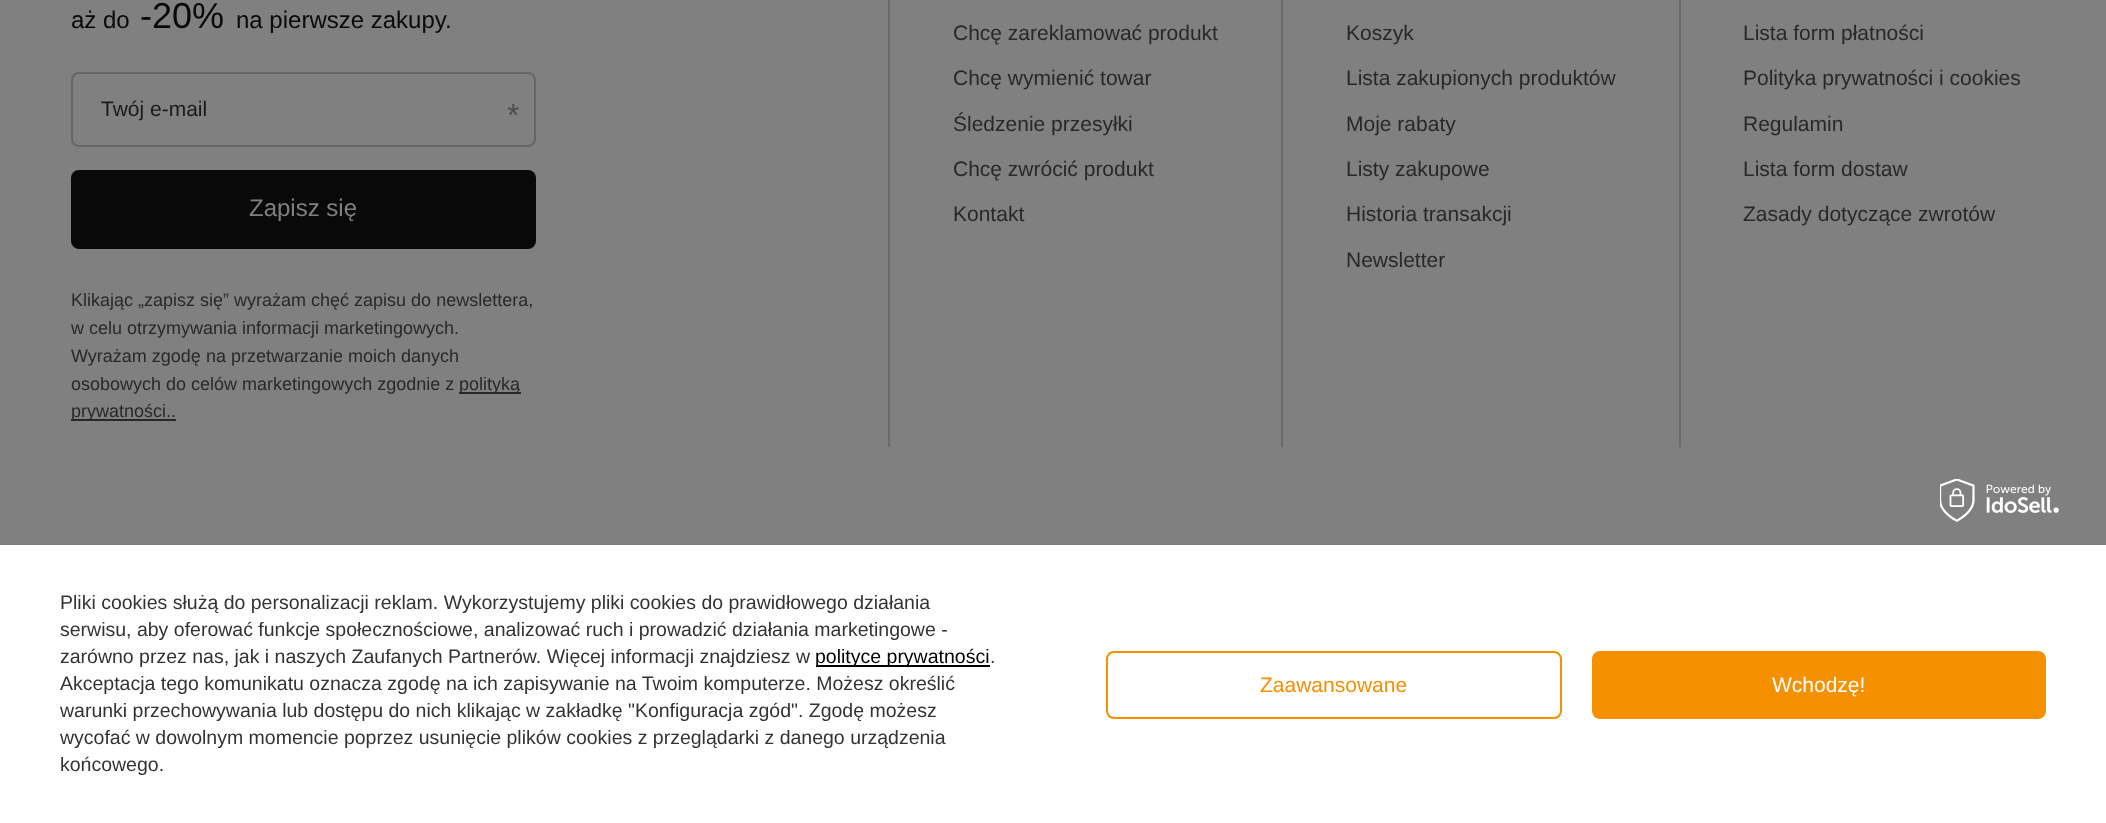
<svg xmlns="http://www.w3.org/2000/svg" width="2106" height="823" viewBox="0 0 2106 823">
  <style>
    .t1 { font: 24px Liberation Sans; fill: #090909; }
    .t2 { font: 36px Liberation Sans; fill: #090909; }
    .t3 { font: 21px Liberation Sans; fill: #1a1a1a; }
    .t4 { font: 32px Liberation Sans; fill: #4d4d4d; }
    .t5 { font: 24px Liberation Sans; fill: #808080; }
    .t6 { font: 18px Liberation Sans; fill: #282828; }
    .t7 { font: 21px Liberation Sans; fill: #282828; }
    .t8 { font: 19.5px Liberation Sans; fill: #333; }
    .t9 { font: 19.5px Liberation Sans; fill: #000; }
    .t10 { font: 21px Liberation Sans; fill: #f59000; }
    .t11 { font: 21px Liberation Sans; fill: #fff; }
  </style>
  <rect width="100%" height="100%" fill="#808080"/>
  <text x="71" y="28" class="t1">aż do</text>
  <text x="140" y="28" class="t2">-20%</text>
  <text x="236" y="28" class="t1">na pierwsze zakupy.</text>
  <rect x="72" y="73" width="463" height="73" rx="7" fill="none" stroke="#666" stroke-width="2"/>
  <text x="101" y="116" class="t3">Twój e-mail</text>
  <text x="507" y="126" class="t4">*</text>
  <rect x="71" y="170" width="465" height="79" rx="8" fill="#090909"/>
  <text x="249" y="216" class="t5">Zapisz się</text>
  <text x="71" y="306" class="t6">Klikając „zapisz się” wyrażam chęć zapisu do newslettera,</text>
  <text x="71" y="334" class="t6">w celu otrzymywania informacji marketingowych.</text>
  <text x="71" y="362" class="t6">Wyrażam zgodę na przetwarzanie moich danych</text>
  <text x="71" y="390" class="t6">osobowych do celów marketingowych zgodnie z</text>
  <rect x="459" y="392" width="62" height="2" fill="#282828"/>
  <text x="459" y="390" class="t6">polityką</text>
  <rect x="71" y="419" width="105" height="2" fill="#282828"/>
  <text x="71" y="417" class="t6">prywatności..</text>
  <rect x="888" y="0" width="2" height="447" fill="#6b6b6b"/>
  <text x="953" y="40" class="t7">Chcę zareklamować produkt</text>
  <text x="953" y="85" class="t7">Chcę wymienić towar</text>
  <text x="953" y="131" class="t7">Śledzenie przesyłki</text>
  <text x="953" y="176" class="t7">Chcę zwrócić produkt</text>
  <text x="953" y="221" class="t7">Kontakt</text>
  <rect x="1281" y="0" width="2" height="447" fill="#6b6b6b"/>
  <text x="1346" y="40" class="t7">Koszyk</text>
  <text x="1346" y="85" class="t7">Lista zakupionych produktów</text>
  <text x="1346" y="131" class="t7">Moje rabaty</text>
  <text x="1346" y="176" class="t7">Listy zakupowe</text>
  <text x="1346" y="221" class="t7">Historia transakcji</text>
  <text x="1346" y="267" class="t7">Newsletter</text>
  <rect x="1679" y="0" width="2" height="447" fill="#6b6b6b"/>
  <text x="1743" y="40" class="t7">Lista form płatności</text>
  <text x="1743" y="85" class="t7">Polityka prywatności i cookies</text>
  <text x="1743" y="131" class="t7">Regulamin</text>
  <text x="1743" y="176" class="t7">Lista form dostaw</text>
  <text x="1743" y="221" class="t7">Zasady dotyczące zwrotów</text>
  <rect x="0" y="545" width="2106" height="278" fill="#fff"/>
  <image x="1940" y="479" width="119" height="43" href="images/1.png"/>
  <text x="60" y="609" class="t8">Pliki cookies służą do personalizacji reklam. Wykorzystujemy pliki cookies do prawidłowego działania</text>
  <text x="60" y="636" class="t8">serwisu, aby oferować funkcje społecznościowe, analizować ruch i prowadzić działania marketingowe -</text>
  <text x="60" y="663" class="t8">zarówno przez nas, jak i naszych Zaufanych Partnerów. Więcej informacji znajdziesz w</text>
  <rect x="816" y="665" width="174" height="2" fill="#000"/>
  <text x="815" y="663" class="t9">polityce prywatności</text>
  <text x="990" y="663" class="t8">.</text>
  <text x="60" y="690" class="t8">Akceptacja tego komunikatu oznacza zgodę na ich zapisywanie na Twoim komputerze. Możesz określić</text>
  <text x="60" y="717" class="t8">warunki przechowywania lub dostępu do nich klikając w zakładkę "Konfiguracja zgód". Zgodę możesz</text>
  <text x="60" y="744" class="t8">wycofać w dowolnym momencie poprzez usunięcie plików cookies z przeglądarki z danego urządzenia</text>
  <text x="60" y="771" class="t8">końcowego.</text>
  <rect x="1107" y="652" width="454" height="66" rx="7" fill="none" stroke="#f59000" stroke-width="2"/>
  <text x="1260" y="692" class="t10">Zaawansowane</text>
  <rect x="1593" y="652" width="452" height="66" rx="7" fill="#f59000" stroke="#f59000" stroke-width="2"/>
  <text x="1772" y="692" class="t11">Wchodzę!</text>
</svg>
